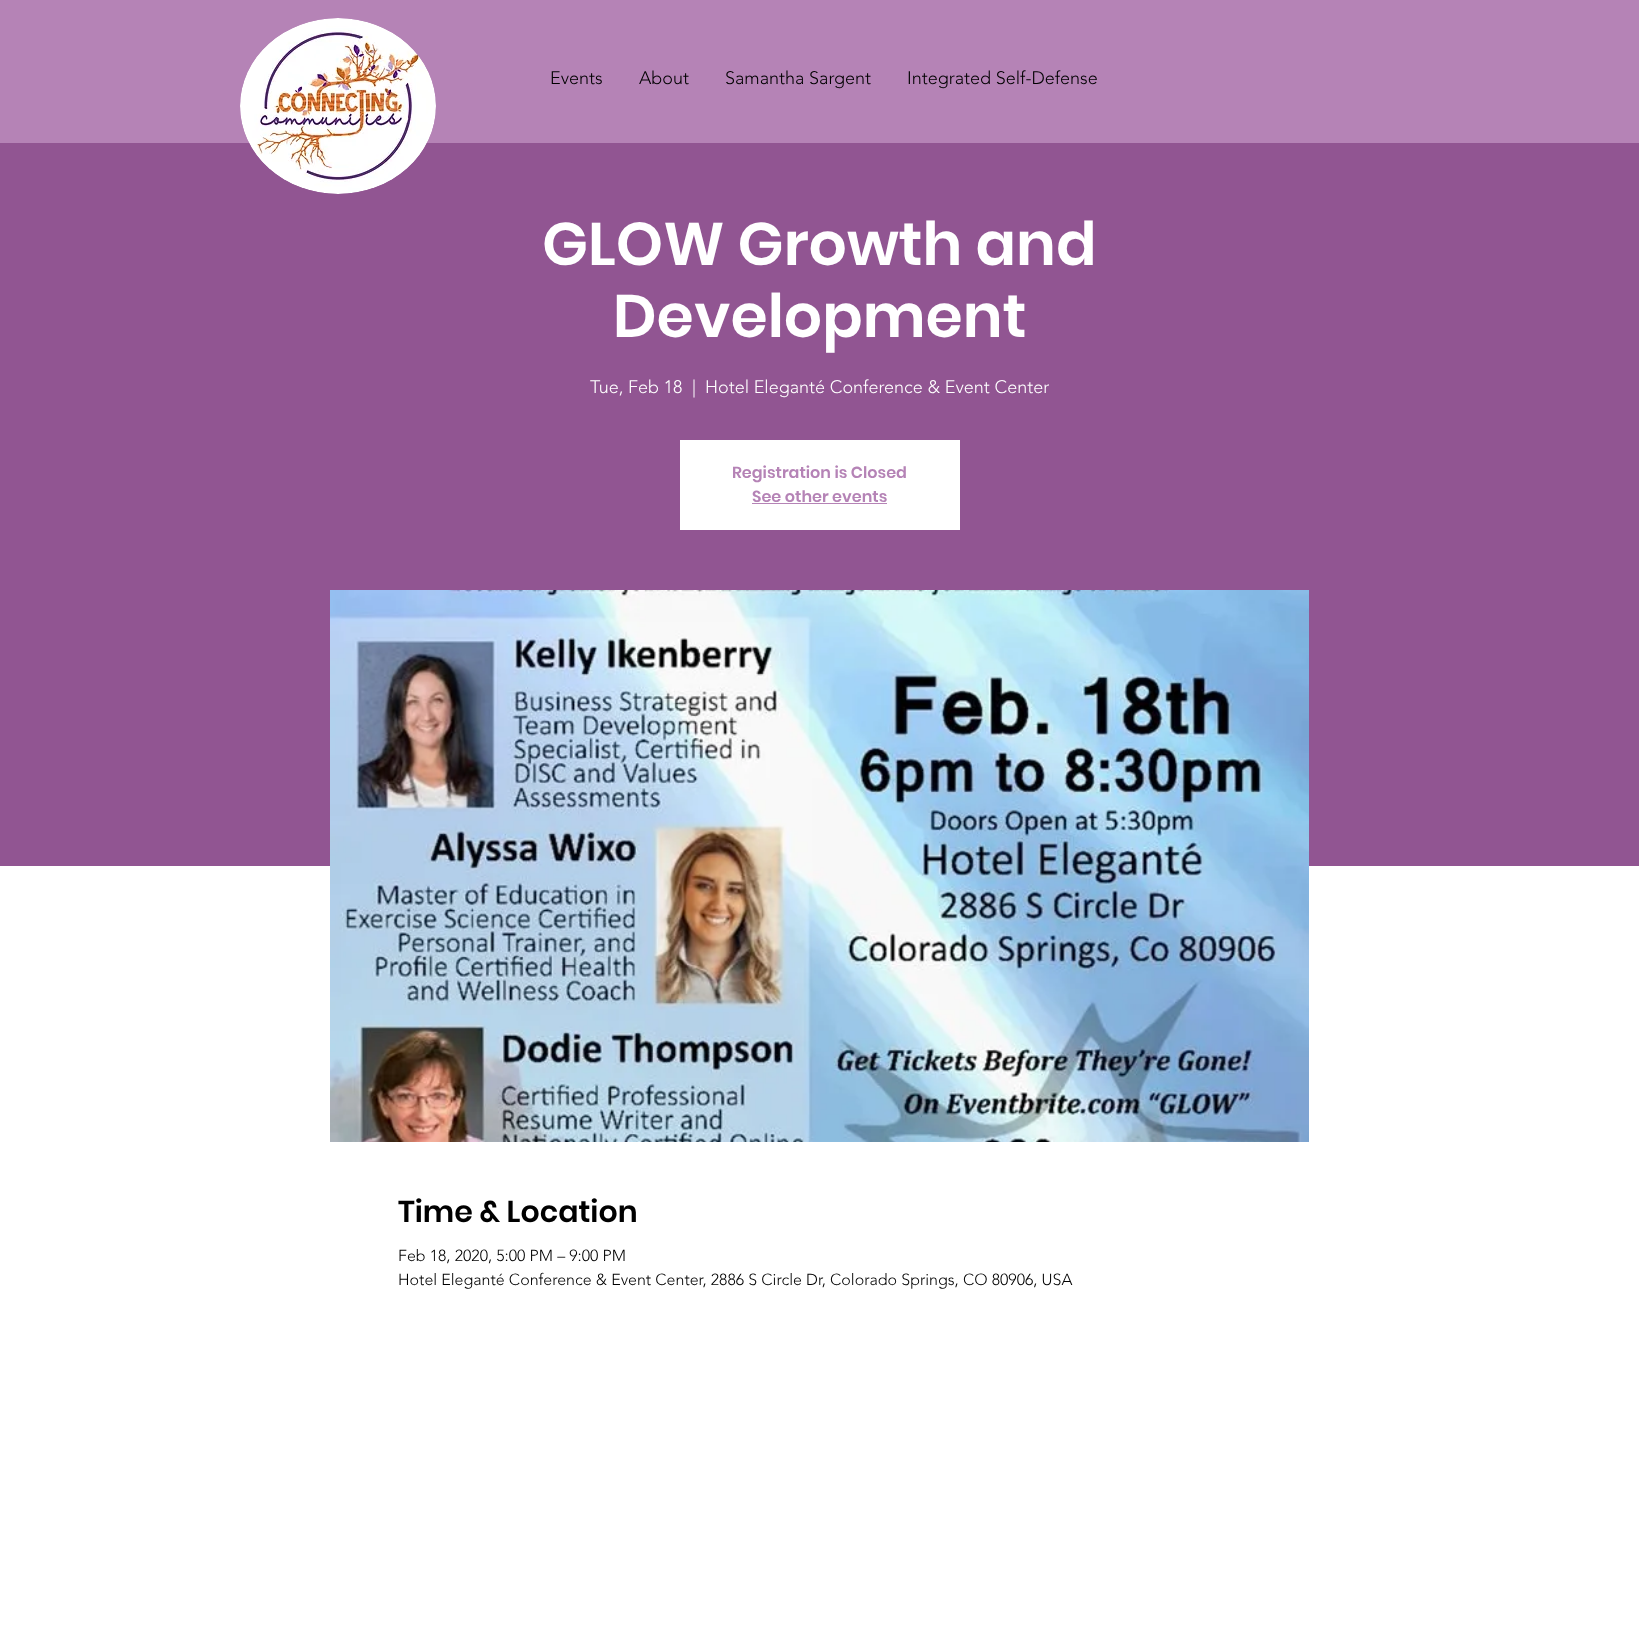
<svg xmlns="http://www.w3.org/2000/svg" width="1639" height="1637" viewBox="0 0 1639 1637">
  <style>
    .t1 { font: 300 18px 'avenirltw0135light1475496'; fill: #000; }
    .t2 { font: 600 60px Poppins; fill: #fff; }
    .t3 { font: 300 18px 'avenirltw0135light1475496'; fill: #fff; }
    .t4 { font: 600 16px Poppins; fill: #b583b6; }
    .t5 { font: 600 30px Poppins; fill: #000; }
    .t6 { font: 300 16px 'avenirltw0135light1475496'; fill: #000; }
  </style>
  <rect width="100%" height="100%" fill="#b583b6"/>
  <rect x="0" y="143" width="1639" height="723" fill="#915592"/>
  <image x="240" y="18" width="196" height="176" href="images/1.png"/>
  <text x="550" y="84" class="t1">Events</text>
  <text x="639" y="84" class="t1">About</text>
  <text x="725" y="84" class="t1">Samantha Sargent</text>
  <text x="907" y="84" class="t1">Integrated Self-Defense</text>
  <text x="542" y="265" class="t2">GLOW Growth and</text>
  <text x="613" y="337" class="t2">Development</text>
  <text x="590" y="393" class="t3">Tue, Feb 18</text>
  <text x="692" y="393" class="t3">|</text>
  <text x="705" y="393" class="t3">Hotel Eleganté Conference &amp; Event Center</text>
  <rect x="680" y="440" width="280" height="90" fill="#fff"/>
  <text x="732" y="478" class="t4">Registration is Closed</text>
  <text x="752" y="502" class="t4">See other events</text>
  <rect x="752" y="503" width="135" height="1" fill="#b583b6"/>
  <rect x="0" y="866" width="1639" height="771" fill="#fff"/>
  <image x="330" y="590" width="979" height="552" href="images/2.png"/>
  <text x="398" y="1222" class="t5">Time &amp; Location</text>
  <text x="398" y="1261" class="t6">Feb 18, 2020, 5:00 PM – 9:00 PM</text>
  <text x="398" y="1285" class="t6">Hotel Eleganté Conference &amp; Event Center, 2886 S Circle Dr, Colorado Springs, CO 80906, USA</text>
</svg>
